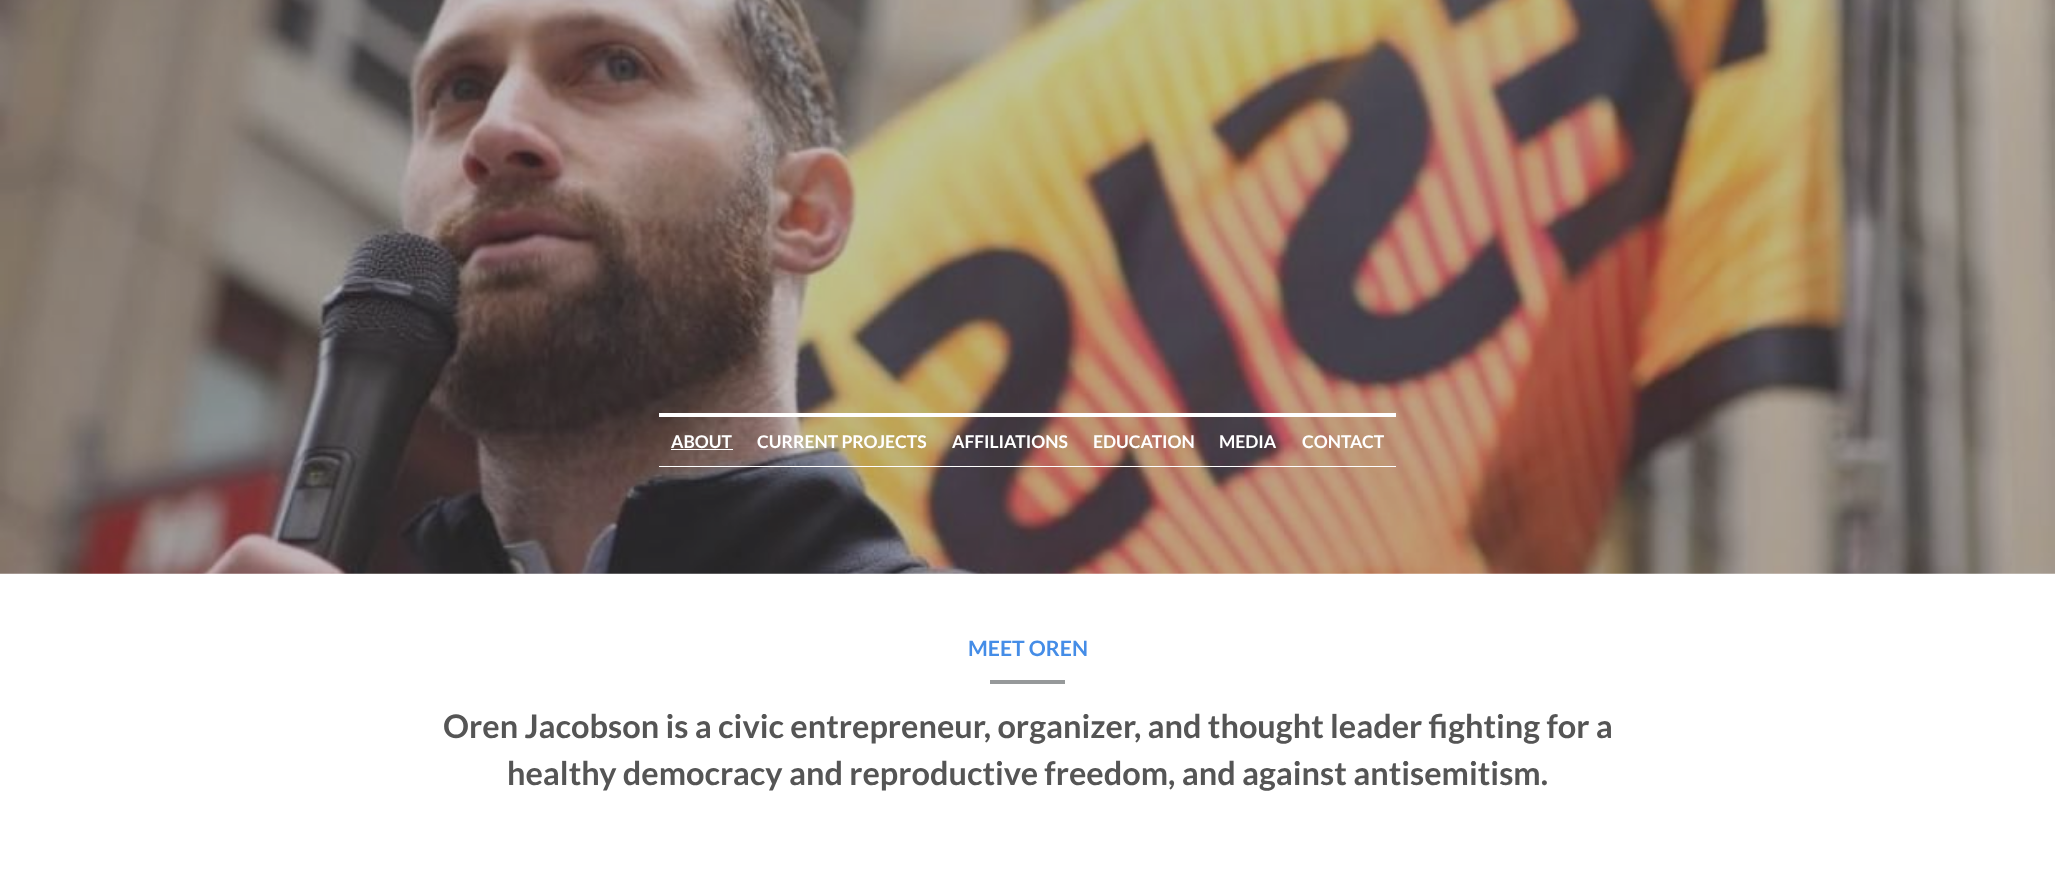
<svg xmlns="http://www.w3.org/2000/svg" width="2055" height="891" viewBox="0 0 2055 891">
  <style>
    .t1 { font: bold 17.5px Lato; fill: #fff; }
    .t2 { font: bold 21.25px Lato; fill: #458de7; }
    .t3 { font: bold 32.5px Lato; fill: #555; }
  </style>
  <rect width="100%" height="100%" fill="#fff"/>
  <image x="0" y="0" width="2055" height="574" href="images/1.png"/>
  <rect x="659" y="413" width="737" height="4" fill="#fff"/>
  <rect x="659" y="466" width="737" height="1" fill="#fff"/>
  <text x="671" y="448" class="t1">ABOUT</text>
  <rect x="671" y="449" width="62" height="1" fill="#fff"/>
  <text x="757" y="448" class="t1">CURRENT PROJECTS</text>
  <text x="952" y="448" class="t1">AFFILIATIONS</text>
  <text x="1093" y="448" class="t1">EDUCATION</text>
  <text x="1219" y="448" class="t1">MEDIA</text>
  <text x="1302" y="448" class="t1">CONTACT</text>
  <text x="968" y="656" class="t2">MEET OREN</text>
  <rect x="990" y="680" width="75" height="4" fill="#96999a"/>
  <text x="443" y="738" class="t3">Oren Jacobson is a civic entrepreneur, organizer, and thought leader fighting for a</text>
  <text x="507" y="785" class="t3">healthy democracy and reproductive freedom, and against antisemitism.</text>
</svg>
